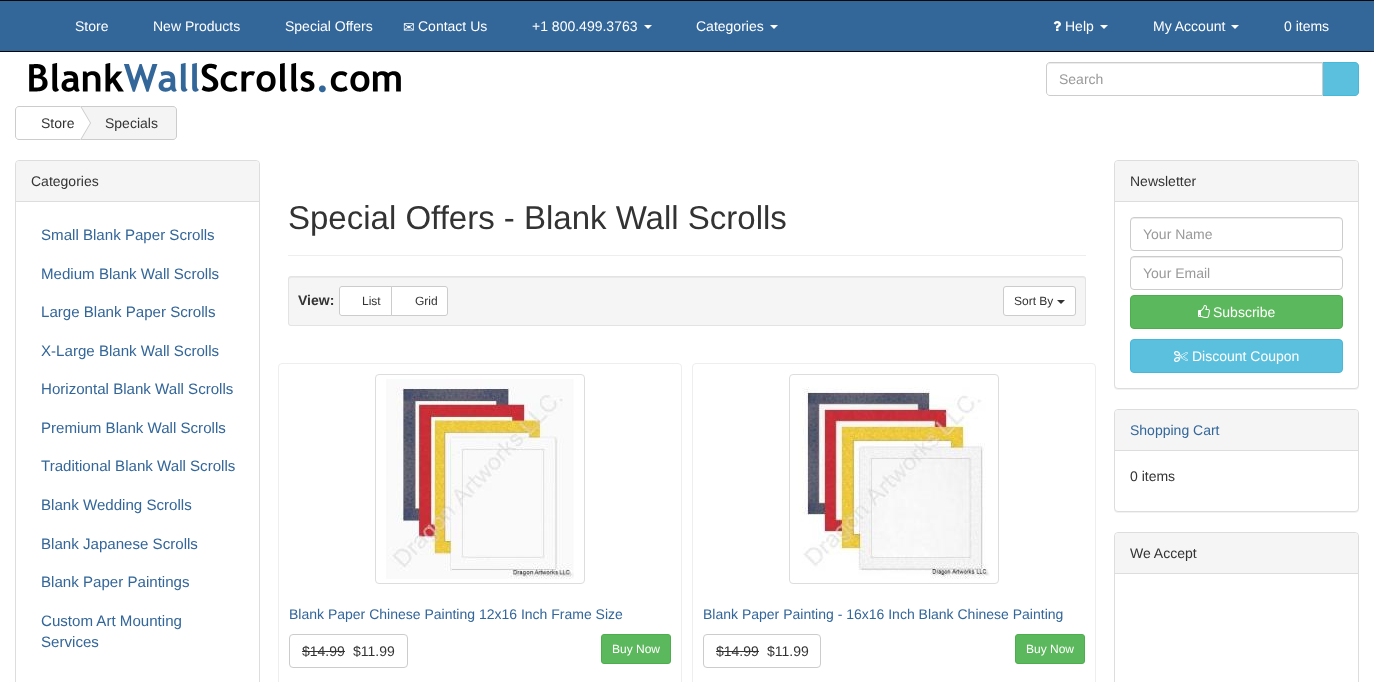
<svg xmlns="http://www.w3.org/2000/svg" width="1374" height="682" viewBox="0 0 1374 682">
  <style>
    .t1 { font: 14px Liberation Sans; fill: #fff; }
    .t2 { font: 14px DejaVu Sans; fill: #fff; }
    .t3 { font: 14px Liberation Sans; fill: #999; }
    .t4 { font: 14px Liberation Sans; fill: #333; }
    .t5 { font: 15.1px Liberation Sans; fill: #369; }
    .t6 { font: 33px Liberation Sans; fill: #333; }
    .t7 { font: bold 14px Liberation Sans; fill: #333; }
    .t8 { font: 12px Liberation Sans; fill: #333; }
    .t9 { font: 14px Liberation Sans; fill: #369; }
    .t10 { font: 12px Liberation Sans; fill: #fff; }
  </style>
  <rect width="100%" height="100%" fill="#fff"/>
  <rect x="0" y="1" width="1374" height="50" fill="#369"/>
  <rect x="0" y="0" width="1374" height="1" fill="#080808"/>
  <rect x="0" y="51" width="1374" height="1" fill="#080808"/>
  <text x="75" y="31" class="t1">Store</text>
  <text x="153" y="31" class="t1">New Products</text>
  <text x="285" y="31" class="t1">Special Offers</text>
  <text x="403" y="32" class="t2">✉</text>
  <text x="418" y="31" class="t1">Contact Us</text>
  <text x="532" y="31" class="t1">+1 800.499.3763</text>
  <path d="M644 25H652L648 29Z" fill="#fff"/>
  <text x="696" y="31" class="t1">Categories</text>
  <path d="M770 25H778L774 29Z" fill="#fff"/>
  <image x="1053" y="21" width="8" height="10" href="images/1.png"/>
  <text x="1065" y="31" class="t1">Help</text>
  <path d="M1100 25H1108L1104 29Z" fill="#fff"/>
  <text x="1153" y="31" class="t1">My Account</text>
  <path d="M1231 25H1239L1235 29Z" fill="#fff"/>
  <text x="1284" y="31" class="t1">0 items</text>
  <image x="29" y="63" width="372" height="30" href="images/2.png"/>
  <path d="M1322.5 62.5H1355C1357 62.5 1358.5 64 1358.5 66V92C1358.5 94 1357 95.5 1355 95.5H1322.5Z" fill="#5bc0de" stroke="#46b8da"/>
  <path d="M1050 62H1323V96H1050C1048 96 1046 94 1046 92V66C1046 64 1048 62 1050 62Z" fill="#fff"/>
  <path d="M1050 64H1322V63H1050C1048 63 1047 64 1047 66V67C1047 65 1048 64 1050 64Z" fill="#ececec"/>
  <path d="M1050 62.5H1322.5V95.5H1050C1048 95.5 1046.5 94 1046.5 92V66C1046.5 64 1048 62.5 1050 62.5Z" fill="none" stroke="#ccc"/>
  <text x="1059" y="84" class="t3">Search</text>
  <path d="M19 106.5H80.5V139.5H19C17 139.5 15.5 138 15.5 136V110C15.5 108 17 106.5 19 106.5Z" fill="none" stroke="#ccc"/>
  <path d="M80.5 106.5H173C175 106.5 176.5 108 176.5 110V136C176.5 138 175 139.5 173 139.5H80.5Z" fill="#f4f4f4" stroke="#ccc"/>
  <path d="M81 140V106L91 123Z" fill="#ccc"/>
  <path d="M80 140V106L90 123Z" fill="#fff"/>
  <text x="41" y="128" class="t4">Store</text>
  <text x="105" y="128" class="t4">Specials</text>
  <rect x="15.5" y="160.5" width="244" height="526" rx="3.5" fill="none" stroke="#ddd"/>
  <path d="M19 161H256C257.5 161 259 162.5 259 164V202H16V164C16 162.5 17.5 161 19 161Z" fill="#f5f5f5"/>
  <rect x="16" y="201" width="243" height="1" fill="#ddd"/>
  <text x="31" y="186" class="t4">Categories</text>
  <text x="41" y="240" class="t5">Small Blank Paper Scrolls</text>
  <text x="41" y="279" class="t5">Medium Blank Wall Scrolls</text>
  <text x="41" y="317" class="t5">Large Blank Paper Scrolls</text>
  <text x="41" y="356" class="t5">X-Large Blank Wall Scrolls</text>
  <text x="41" y="394" class="t5">Horizontal Blank Wall Scrolls</text>
  <text x="41" y="433" class="t5">Premium Blank Wall Scrolls</text>
  <text x="41" y="471" class="t5">Traditional Blank Wall Scrolls</text>
  <text x="41" y="510" class="t5">Blank Wedding Scrolls</text>
  <text x="41" y="549" class="t5">Blank Japanese Scrolls</text>
  <text x="41" y="587" class="t5">Blank Paper Paintings</text>
  <text x="41" y="626" class="t5">Custom Art Mounting</text>
  <text x="41" y="647" class="t5">Services</text>
  <rect x="288" y="255" width="798" height="1" fill="#eee"/>
  <text x="288" y="229" class="t6">Special Offers - Blank Wall Scrolls</text>
  <rect x="288" y="276" width="798" height="50" rx="3" fill="#f5f5f5"/>
  <path d="M291 278H1083C1084 278 1085 279 1085 280C1085 279 1085 277 1083 277H291C289 277 289 279 289 280C289 279 290 278 291 278Z" fill="#e9e9e9"/>
  <rect x="288.5" y="276.5" width="797" height="49" rx="2.5" fill="none" stroke="#e3e3e3"/>
  <text x="298" y="305" class="t7">View:</text>
  <path d="M342 286.5H391.5V315.5H342C340.5 315.5 339.5 314.5 339.5 313V289C339.5 287.5 340.5 286.5 342 286.5Z" fill="#fff" stroke="#ccc"/>
  <text x="362" y="305" class="t8">List</text>
  <path d="M391.5 286.5H445C446.5 286.5 447.5 287.5 447.5 289V313C447.5 314.5 446.5 315.5 445 315.5H391.5Z" fill="#fff" stroke="#ccc"/>
  <text x="415" y="305" class="t8">Grid</text>
  <rect x="1003.5" y="286.5" width="72" height="29" rx="2.5" fill="#fff" stroke="#ccc"/>
  <text x="1014" y="305" class="t8">Sort By</text>
  <path d="M1057 300H1065L1061 304Z" fill="#333"/>
  <rect x="278.5" y="363.5" width="403" height="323" rx="3.5" fill="none" stroke="#eee"/>
  <rect x="375.5" y="374.5" width="209" height="209" rx="3.5" fill="none" stroke="#ddd"/>
  <image x="386" y="379" width="188" height="200" href="images/3.png"/>
  <text x="289" y="619" class="t9">Blank Paper Chinese Painting 12x16 Inch Frame Size</text>
  <rect x="289.5" y="634.5" width="118" height="33" rx="3.5" fill="none" stroke="#ccc"/>
  <text x="302" y="656" class="t4">$14.99</text>
  <rect x="302" y="651" width="43" height="1" fill="#333"/>
  <text x="353" y="656" class="t4">$11.99</text>
  <rect x="601.5" y="634.5" width="69" height="29" rx="2.5" fill="#5cb85c" stroke="#4cae4c"/>
  <text x="612" y="653" class="t10">Buy Now</text>
  <rect x="692.5" y="363.5" width="403" height="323" rx="3.5" fill="none" stroke="#eee"/>
  <rect x="789.5" y="374.5" width="209" height="209" rx="3.5" fill="none" stroke="#ddd"/>
  <image x="799" y="387" width="191" height="192" href="images/4.png"/>
  <text x="703" y="619" class="t9">Blank Paper Painting - 16x16 Inch Blank Chinese Painting</text>
  <rect x="703.5" y="634.5" width="117" height="33" rx="3.5" fill="none" stroke="#ccc"/>
  <text x="716" y="656" class="t4">$14.99</text>
  <rect x="716" y="651" width="43" height="1" fill="#333"/>
  <text x="767" y="656" class="t4">$11.99</text>
  <rect x="1015.5" y="634.5" width="69" height="29" rx="2.5" fill="#5cb85c" stroke="#4cae4c"/>
  <text x="1026" y="653" class="t10">Buy Now</text>
  <rect x="1114" y="161" width="245" height="229" rx="4" fill="#0000000d" filter="blur(0.5px)"/>
  <rect x="1114.5" y="160.5" width="244" height="228" rx="3.5" fill="#fff" stroke="#ddd"/>
  <path d="M1118 161H1355C1356.5 161 1358 162.5 1358 164V202H1115V164C1115 162.5 1116.5 161 1118 161Z" fill="#f5f5f5"/>
  <rect x="1115" y="201" width="243" height="1" fill="#ddd"/>
  <text x="1130" y="186" class="t4">Newsletter</text>
  <path d="M1134 219H1339C1341 219 1342 220 1342 222V221C1342 219 1341 218 1339 218H1134C1132 218 1131 219 1131 221V222C1131 220 1132 219 1134 219Z" fill="#ececec"/>
  <rect x="1130.5" y="217.5" width="212" height="33" rx="3.5" fill="none" stroke="#ccc"/>
  <text x="1143" y="239" class="t3">Your Name</text>
  <path d="M1134 258H1339C1341 258 1342 259 1342 261V260C1342 258 1341 257 1339 257H1134C1132 257 1131 258 1131 260V261C1131 259 1132 258 1134 258Z" fill="#ececec"/>
  <rect x="1130.5" y="256.5" width="212" height="33" rx="3.5" fill="none" stroke="#ccc"/>
  <text x="1143" y="278" class="t3">Your Email</text>
  <rect x="1130.5" y="295.5" width="212" height="33" rx="3.5" fill="#5cb85c" stroke="#4cae4c"/>
  <image x="1198" y="305" width="12" height="13" href="images/5.png"/>
  <text x="1213" y="317" class="t1">Subscribe</text>
  <rect x="1130.5" y="339.5" width="212" height="33" rx="3.5" fill="#5bc0de" stroke="#46b8da"/>
  <image x="1174" y="351" width="14" height="11" href="images/6.png"/>
  <text x="1192" y="361" class="t1">Discount Coupon</text>
  <rect x="1114" y="410" width="245" height="103" rx="4" fill="#0000000d" filter="blur(0.5px)"/>
  <rect x="1114.5" y="409.5" width="244" height="102" rx="3.5" fill="#fff" stroke="#ddd"/>
  <path d="M1118 410H1355C1356.5 410 1358 411.5 1358 413V451H1115V413C1115 411.5 1116.5 410 1118 410Z" fill="#f5f5f5"/>
  <rect x="1115" y="450" width="243" height="1" fill="#ddd"/>
  <text x="1130" y="435" class="t9">Shopping Cart</text>
  <text x="1130" y="481" class="t4">0 items</text>
  <rect x="1114.5" y="532.5" width="244" height="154" rx="3.5" fill="none" stroke="#ddd"/>
  <path d="M1118 533H1355C1356.5 533 1358 534.5 1358 536V574H1115V536C1115 534.5 1116.5 533 1118 533Z" fill="#f5f5f5"/>
  <rect x="1115" y="573" width="243" height="1" fill="#ddd"/>
  <text x="1130" y="558" class="t4">We Accept</text>
</svg>
